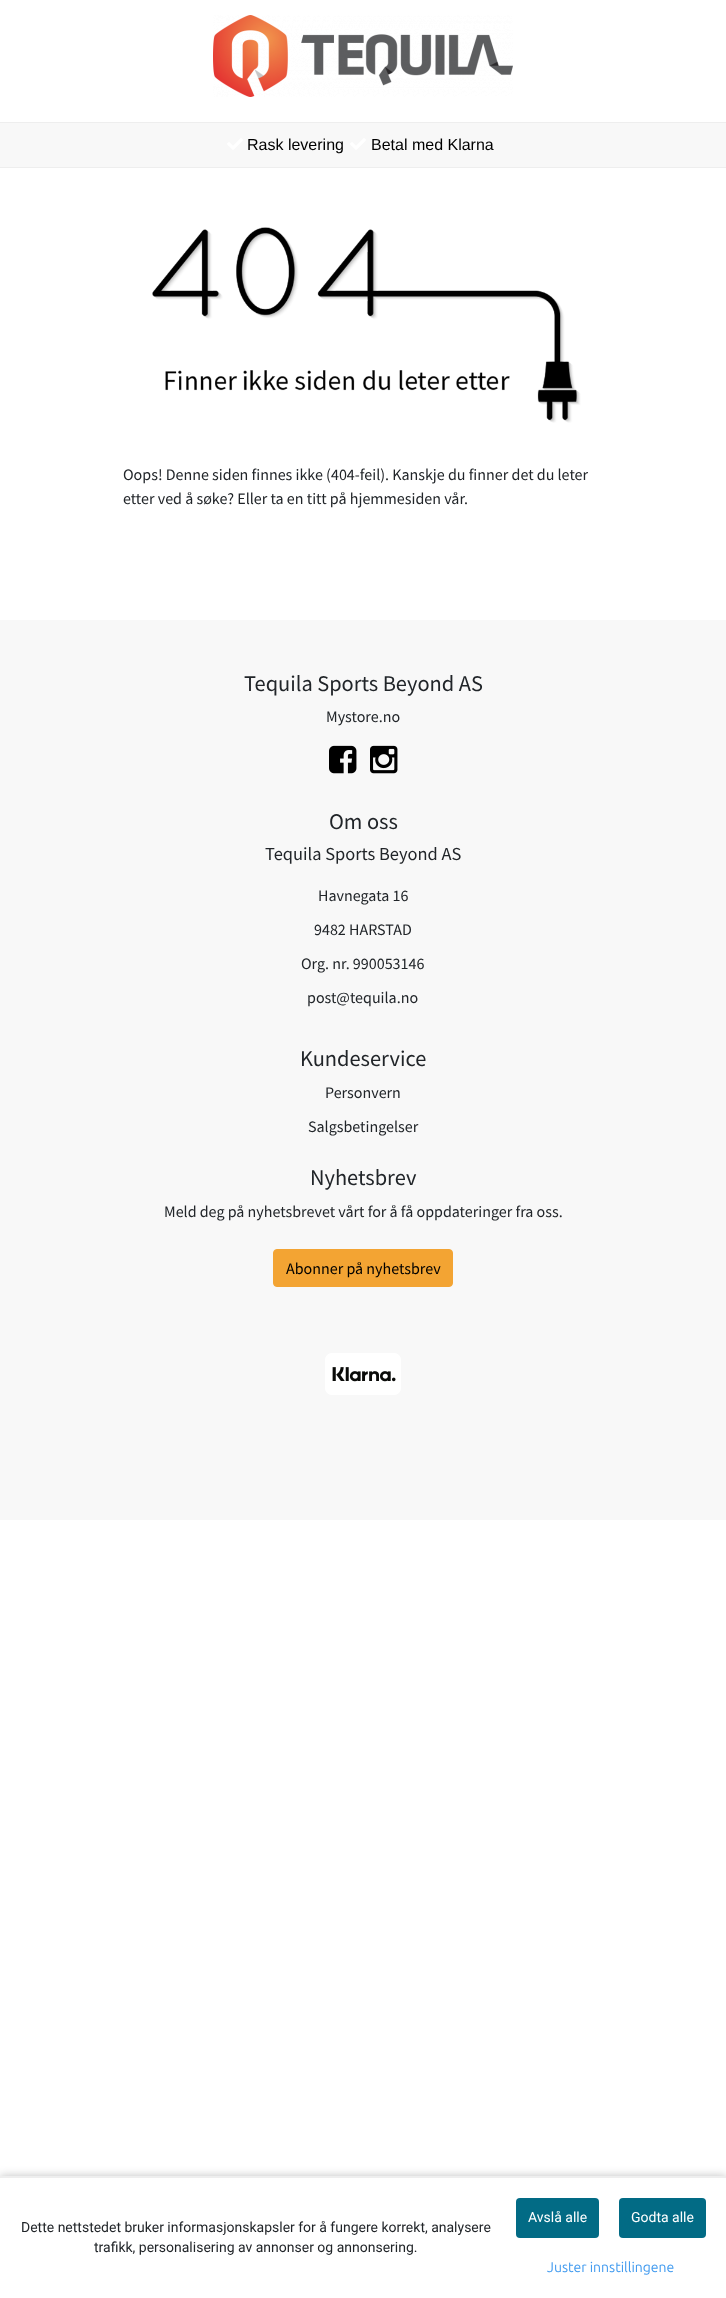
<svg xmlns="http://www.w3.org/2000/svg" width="726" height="2298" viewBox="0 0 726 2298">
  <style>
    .t1 { font: 16px Liberation Sans; fill: #000; }
    .t2 { font: 16px Source Sans Pro; fill: #212529; }
    .t3 { font: 22.4px Source Sans Pro; fill: #212529; }
    .t4 { font: 18.4px Source Sans Pro; fill: #212529; }
    .t5 { font: 16px Source Sans Pro; fill: #000; }
    .t6 { font: 14px Roboto; fill: #212529; }
    .t7 { font: 14px Roboto; fill: #fff; }
    .t8 { font: 14px Ubuntu; fill: #409aef; }
  </style>
  <rect width="100%" height="100%" fill="#fff"/>
  <image x="213" y="15" width="300" height="82" href="images/1.png"/>
  <rect x="0" y="123" width="726" height="44" fill="#f8f8f8"/>
  <rect x="0" y="122" width="726" height="1" fill="#eee"/>
  <rect x="0" y="167" width="726" height="1" fill="#eee"/>
  <image x="227" y="138" width="16" height="12" href="images/2.png"/>
  <text x="247" y="150" class="t1">Rask levering</text>
  <image x="350" y="138" width="16" height="12" href="images/2.png"/>
  <text x="371" y="150" class="t1">Betal med Klarna</text>
  <image x="152" y="227" width="429" height="196" href="images/3.png"/>
  <text x="123" y="480" class="t2">Oops! Denne siden finnes ikke (404-feil). Kanskje du finner det du leter</text>
  <text x="123" y="504" class="t2">etter ved å søke? Eller ta en titt på hjemmesiden vår.</text>
  <rect x="0" y="620" width="726" height="900" fill="#f8f8f8"/>
  <text x="244" y="691" class="t3">Tequila Sports Beyond AS</text>
  <text x="326" y="722" class="t2">Mystore.no</text>
  <image x="329" y="745" width="28" height="29" href="images/4.png"/>
  <image x="370" y="745" width="28" height="29" href="images/5.png"/>
  <text x="329" y="829" class="t3">Om oss</text>
  <text x="265" y="860" class="t4">Tequila Sports Beyond AS</text>
  <text x="318" y="901" class="t2">Havnegata 16</text>
  <text x="314" y="935" class="t2">9482 HARSTAD</text>
  <text x="301" y="969" class="t2">Org. nr. 990053146</text>
  <text x="307" y="1003" class="t2">post@tequila.no</text>
  <text x="300" y="1066" class="t3">Kundeservice</text>
  <text x="325" y="1098" class="t2">Personvern</text>
  <text x="308" y="1132" class="t2">Salgsbetingelser</text>
  <text x="310" y="1185" class="t3">Nyhetsbrev</text>
  <text x="164" y="1217" class="t2">Meld deg på nyhetsbrevet vårt for å få oppdateringer fra oss.</text>
  <rect x="273.5" y="1249.5" width="179" height="37" rx="3.5" fill="#f3a433" stroke="#f3a433"/>
  <text x="286" y="1274" class="t5">Abonner på nyhetsbrev</text>
  <image x="325" y="1353" width="76" height="42" href="images/6.png"/>
  <rect x="0" y="2176" width="726" height="122" fill="#00000040" filter="blur(5px)"/>
  <rect x="0" y="2178" width="726" height="120" fill="#fff"/>
  <rect x="0" y="2176" width="726" height="2" fill="#eee"/>
  <text x="21" y="2232" class="t6">Dette nettstedet bruker informasjonskapsler for å fungere korrekt, analysere</text>
  <text x="94" y="2252" class="t6">trafikk, personalisering av annonser og annonsering.</text>
  <rect x="516" y="2198" width="83" height="40" rx="4" fill="#026b85"/>
  <text x="528" y="2222" class="t7">Avslå alle</text>
  <rect x="619" y="2198" width="87" height="40" rx="4" fill="#026b85"/>
  <text x="631" y="2222" class="t7">Godta alle</text>
  <text x="547" y="2272" class="t8">Juster innstillingene</text>
</svg>
